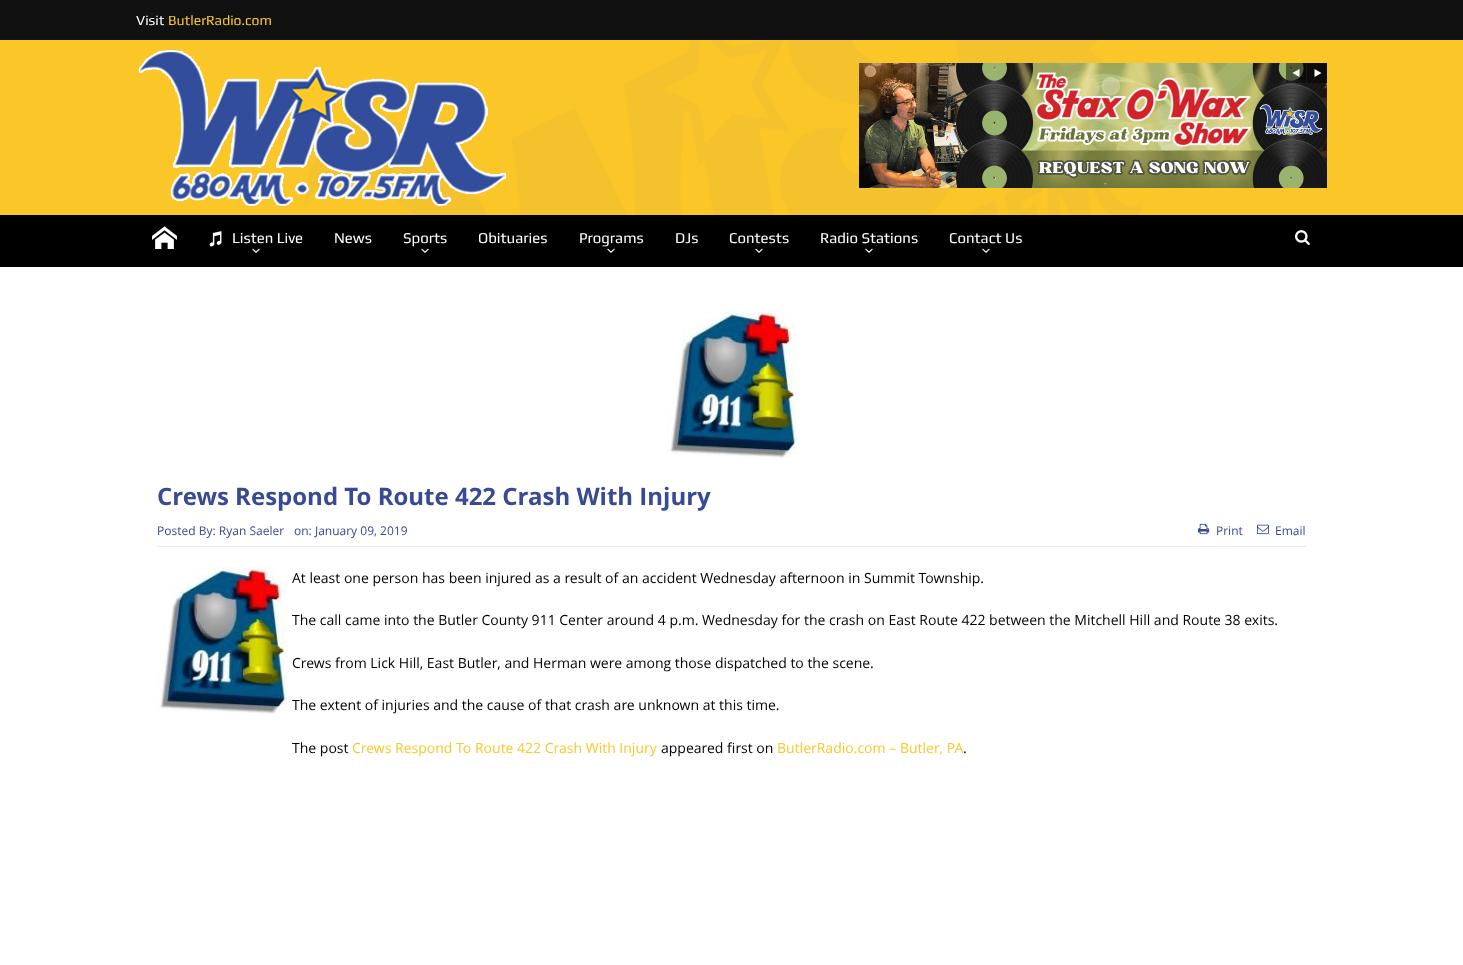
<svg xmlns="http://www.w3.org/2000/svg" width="1463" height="965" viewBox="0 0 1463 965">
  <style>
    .t1 { font: 14px Play; fill: #fff; }
    .t2 { font: 14px Play; fill: #fbc728; }
    .t3 { font: 15px Play; fill: #fff; }
    .t4 { font: bold 24px Open Sans; fill: #384995; }
    .t5 { font: 12px Open Sans; fill: #384995; }
    .t6 { font: 14px Open Sans; fill: #000; }
    .t7 { font: 14px Open Sans; fill: #fbc728; }
  </style>
  <rect width="100%" height="100%" fill="#fff"/>
  <rect x="0" y="0" width="1463" height="40" fill="#111"/>
  <text x="136" y="25" class="t1">Visit</text>
  <text x="168" y="25" class="t2">ButlerRadio.com</text>
  <image x="0" y="40" width="1463" height="175" href="images/1.png"/>
  <image x="138" y="50" width="369" height="156" href="images/2.png"/>
  <image x="859" y="63" width="468" height="125" href="images/3.png"/>
  <rect x="1286" y="63" width="20" height="20" fill="#00000080"/>
  <path d="M1299.5 69V77L1292.5 73Z" fill="#fff"/>
  <rect x="1307" y="63" width="20" height="20" fill="#00000080"/>
  <path d="M1314.5 69V77L1321.5 73Z" fill="#fff"/>
  <rect x="0" y="215" width="1463" height="52" fill="#000"/>
  <image x="152" y="226" width="25" height="23" href="images/4.png"/>
  <image x="209" y="231" width="13" height="16" href="images/5.png"/>
  <text x="232" y="243" class="t3">Listen Live</text>
  <image x="252" y="248" width="8" height="5" href="images/6.png"/>
  <text x="334" y="243" class="t3">News</text>
  <text x="403" y="243" class="t3">Sports</text>
  <image x="421" y="248" width="8" height="5" href="images/6.png"/>
  <text x="478" y="243" class="t3">Obituaries</text>
  <text x="579" y="243" class="t3">Programs</text>
  <image x="607" y="248" width="8" height="5" href="images/6.png"/>
  <text x="675" y="243" class="t3">DJs</text>
  <text x="729" y="243" class="t3">Contests</text>
  <image x="755" y="248" width="8" height="5" href="images/6.png"/>
  <text x="820" y="243" class="t3">Radio Stations</text>
  <image x="865" y="248" width="8" height="5" href="images/6.png"/>
  <text x="949" y="243" class="t3">Contact Us</text>
  <image x="982" y="248" width="8" height="5" href="images/6.png"/>
  <image x="1295" y="230" width="15" height="15" href="images/7.png"/>
  <image x="667" y="311" width="130" height="147" href="images/8.png"/>
  <text x="157" y="505" class="t4">Crews Respond To Route 422 Crash With Injury</text>
  <rect x="157" y="546" width="1149" height="1" fill="#eaeaea"/>
  <text x="157" y="535" class="t5">Posted By: Ryan Saeler</text>
  <text x="294" y="535" class="t5">on: January 09, 2019</text>
  <image x="1198" y="523" width="12" height="12" href="images/9.png"/>
  <text x="1216" y="535" class="t5">Print</text>
  <image x="1257" y="524" width="12" height="11" href="images/10.png"/>
  <text x="1275" y="535" class="t5">Email</text>
  <image x="157" y="567" width="130" height="147" href="images/8.png"/>
  <text x="292" y="583" class="t6">At least one person has been injured as a result of an accident Wednesday afternoon in Summit Township.</text>
  <text x="292" y="625" class="t6">The call came into the Butler County 911 Center around 4 p.m. Wednesday for the crash on East Route 422 between the Mitchell Hill and Route 38 exits.</text>
  <text x="292" y="668" class="t6">Crews from Lick Hill, East Butler, and Herman were among those dispatched to the scene.</text>
  <text x="292" y="710" class="t6">The extent of injuries and the cause of that crash are unknown at this time.</text>
  <text x="292" y="753" class="t6">The post</text>
  <text x="352" y="753" class="t7">Crews Respond To Route 422 Crash With Injury</text>
  <text x="661" y="753" class="t6">appeared first on</text>
  <text x="777" y="753" class="t7">ButlerRadio.com – Butler, PA</text>
  <text x="963" y="753" class="t6">.</text>
</svg>
